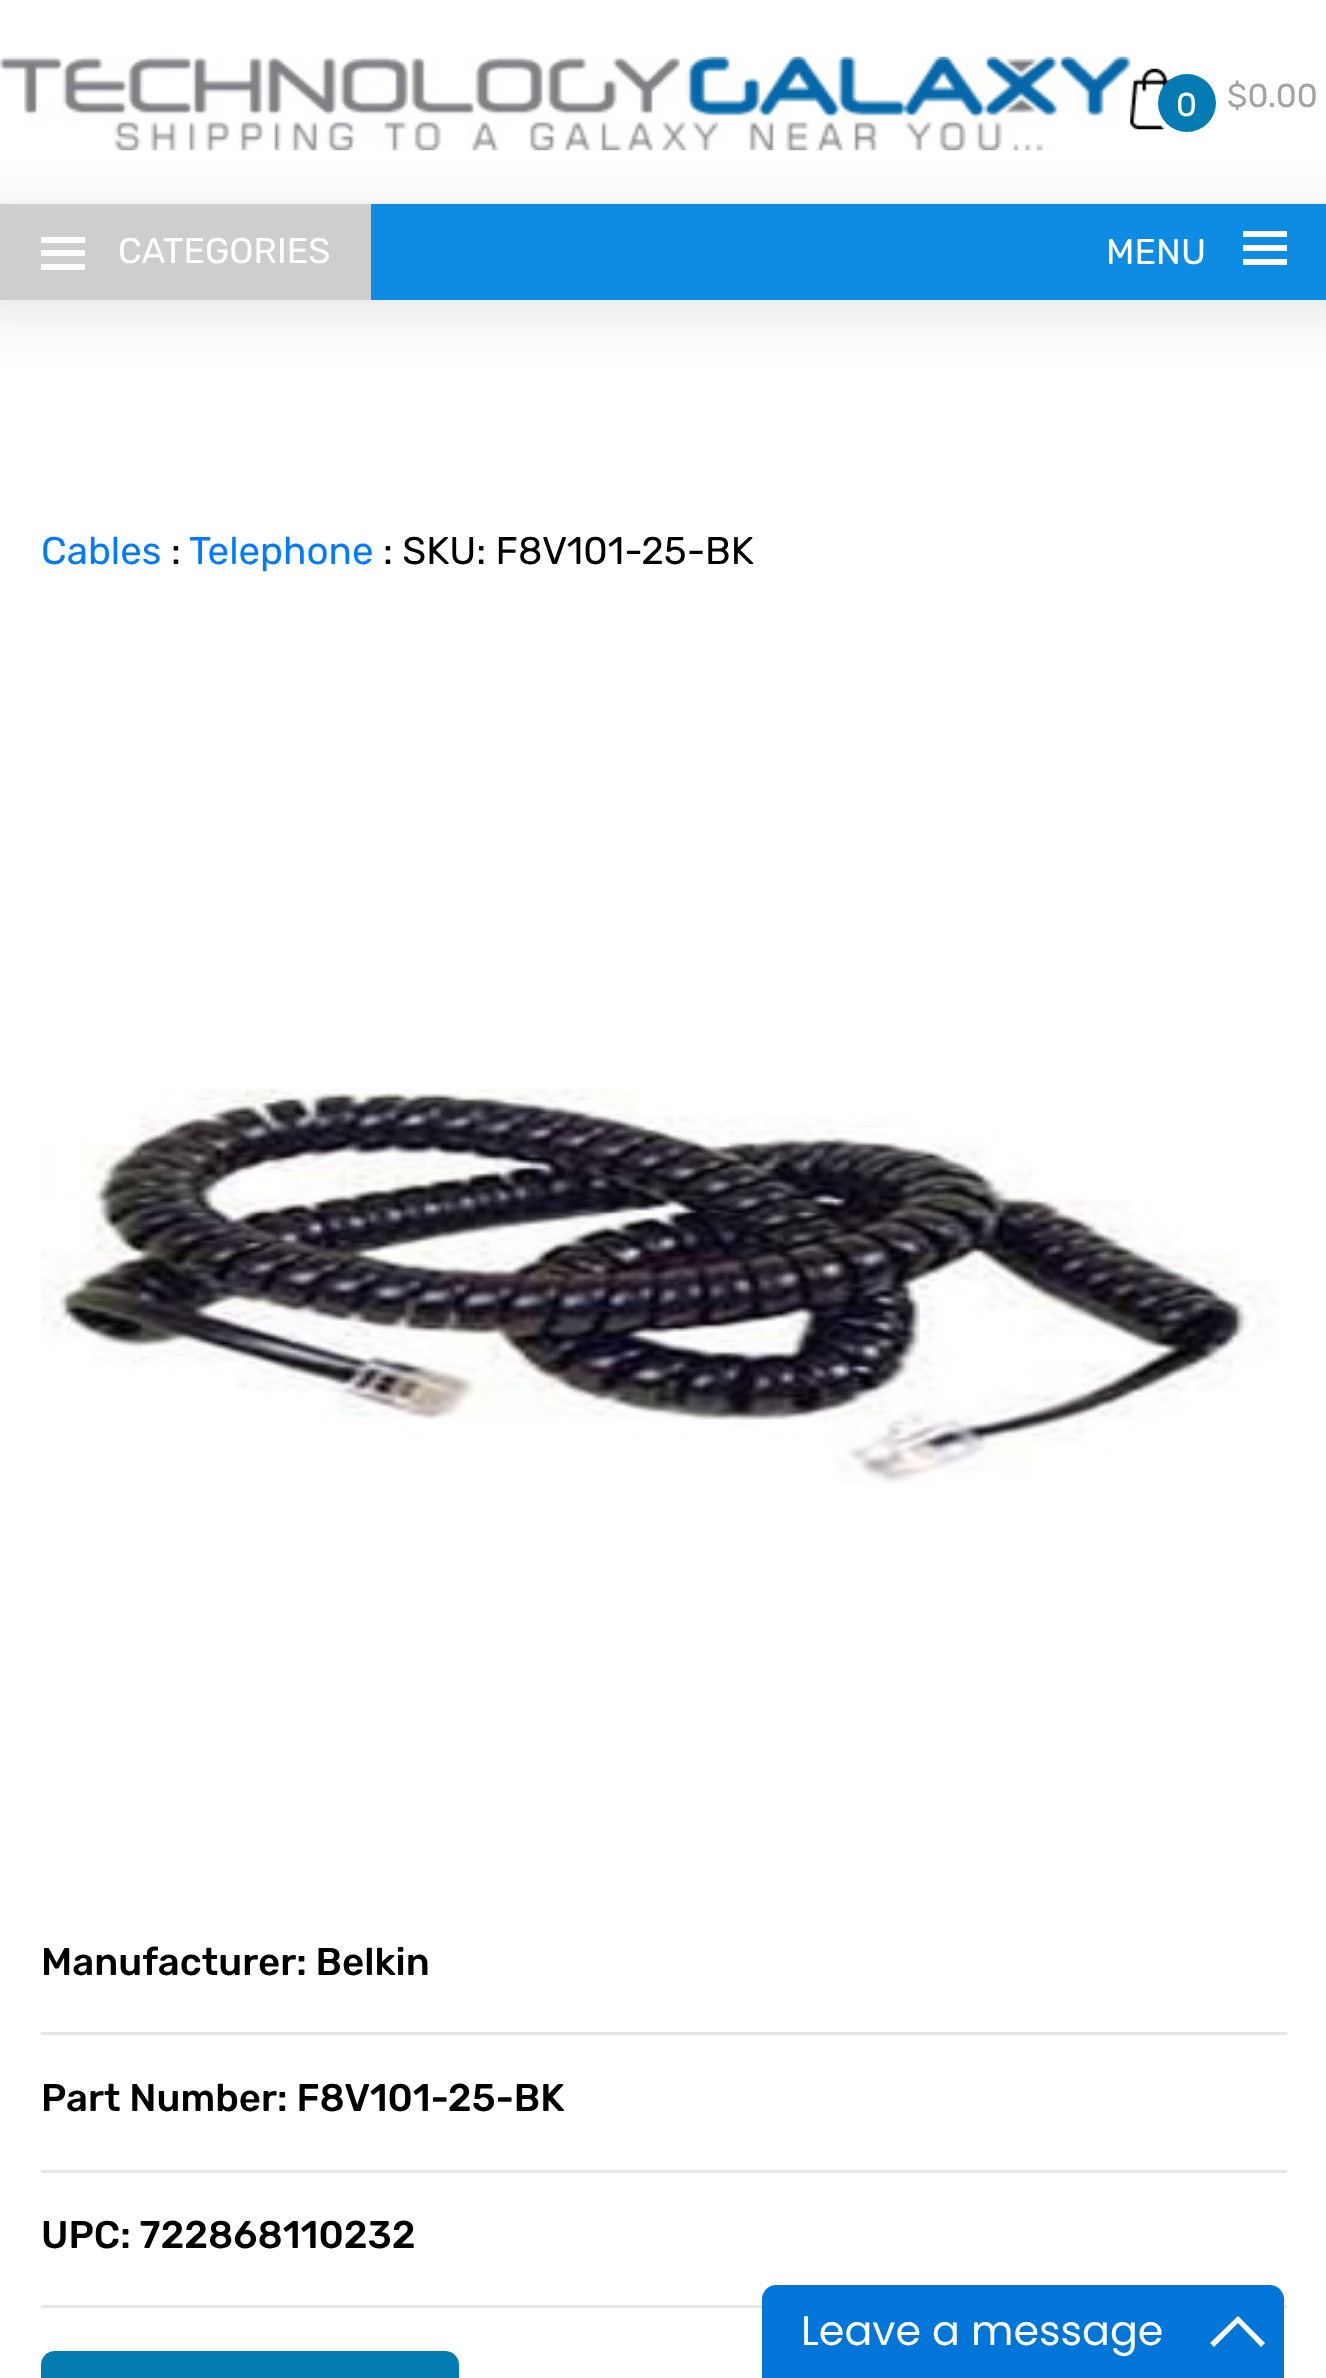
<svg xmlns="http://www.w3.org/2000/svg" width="1326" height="2378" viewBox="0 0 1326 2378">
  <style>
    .t1 { font: 33px Rubik; fill: #fff; }
    .t2 { font: 33px Rubik; fill: #a3a3a3; }
    .t3 { font: 35.75px Rubik; fill: #fff; }
    .t4 { font: 38.5px Rubik; fill: #007bff; }
    .t5 { font: 38.5px Rubik; fill: #000; }
    .t6 { font: 500 38.5px Rubik; fill: #000; }
    .t7 { font: 41.25px Poppins; fill: #fff; }
  </style>
  <rect width="100%" height="100%" fill="#fff"/>
  <rect x="-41" y="215" width="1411" height="99" fill="#0000001a" filter="blur(27.5px)"/>
  <image x="0" y="56" width="1131" height="95" href="images/1.png"/>
  <image x="1130" y="68" width="43" height="62" href="images/2.png"/>
  <circle cx="1187" cy="103" r="29" fill="#047bb2"/>
  <text x="1176" y="116" class="t1">0</text>
  <text x="1227" y="107" class="t2">$0.00</text>
  <rect x="0" y="201" width="1326" height="3" fill="#f2f2f2"/>
  <rect x="371" y="204" width="955" height="96" fill="#0e8ce4"/>
  <rect x="0" y="204" width="371" height="96" fill="#cecece"/>
  <rect x="41" y="237" width="44" height="6" fill="#fff"/>
  <rect x="41" y="250" width="44" height="6" fill="#fff"/>
  <rect x="41" y="264" width="44" height="6" fill="#fff"/>
  <text x="118" y="263" class="t3">CATEGORIES</text>
  <text x="1106" y="264" class="t3">MENU</text>
  <rect x="1243" y="231" width="44" height="6" fill="#fff"/>
  <rect x="1243" y="245" width="44" height="6" fill="#fff"/>
  <rect x="1243" y="259" width="44" height="6" fill="#fff"/>
  <text x="41" y="564" class="t4">Cables</text>
  <text x="171" y="564" class="t5">:</text>
  <text x="189" y="564" class="t4">Telephone</text>
  <text x="383" y="564" class="t5">: SKU: F8V101-25-BK</text>
  <image x="41" y="1088" width="1238" height="396" href="images/3.png"/>
  <text x="41" y="1975" class="t6">Manufacturer: Belkin</text>
  <rect x="41" y="2032" width="1246" height="3" fill="#e6e6e6"/>
  <text x="41" y="2111" class="t6">Part Number: F8V101-25-BK</text>
  <rect x="41" y="2170" width="1246" height="3" fill="#e6e6e6"/>
  <text x="41" y="2248" class="t6">UPC: 722868110232</text>
  <rect x="41" y="2305" width="1246" height="3" fill="#e6e6e6"/>
  <rect x="41" y="2351" width="418" height="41" rx="14" fill="#047bb2"/>
  <path d="M776 2285H1270C1277.5 2285 1284 2291.5 1284 2299V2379H762V2299C762 2291.5 768.5 2285 776 2285Z" fill="#0275d8"/>
  <text x="801" y="2345" class="t7">Leave a message</text>
  <path d="M1238 2316L1265 2343L1261 2347L1238 2323L1214 2347L1210 2343Z" fill="#fff"/>
</svg>
